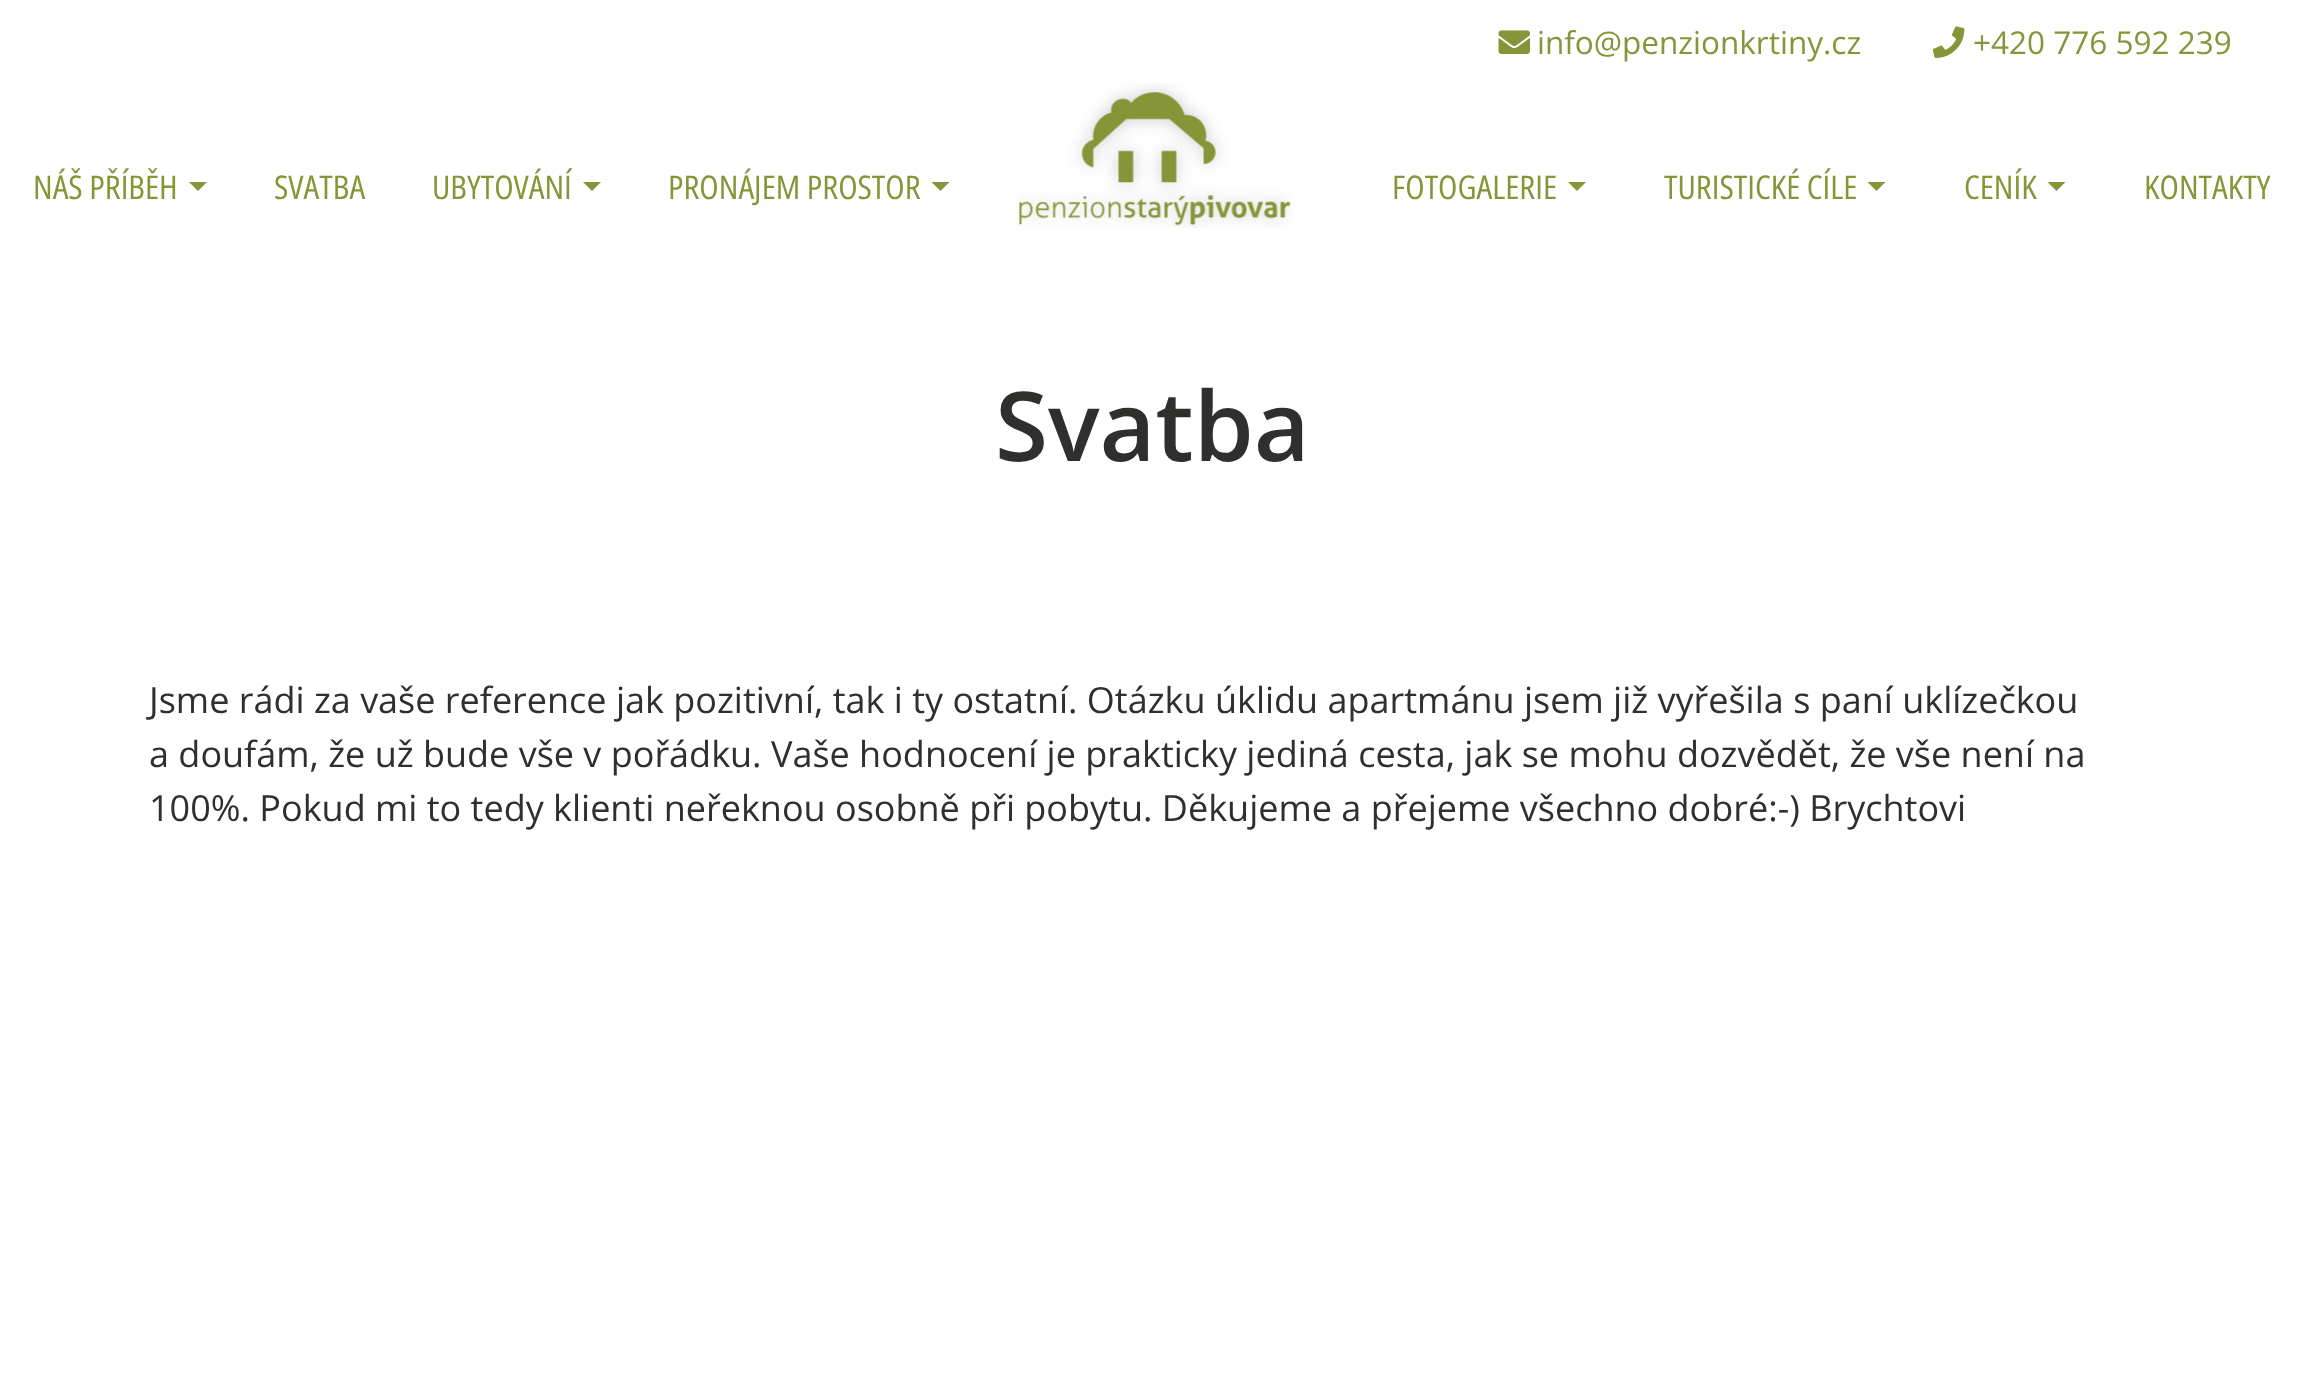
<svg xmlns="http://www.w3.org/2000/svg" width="2303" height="1386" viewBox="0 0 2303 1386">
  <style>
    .t1 { font: 31.5px Open Sans; fill: #859538; }
    .t2 { font: 32.75px 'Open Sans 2'; fill: #859538; }
    .t3 { font: 600 96.5px Open Sans; fill: #2f2f2d; }
    .t4 { font: 36px Open Sans; fill: #2f2f2d; }
  </style>
  <rect width="100%" height="100%" fill="#fff"/>
  <image x="1498" y="30" width="32" height="24" href="images/1.png"/>
  <text x="1537" y="54" class="t1">info@penzionkrtiny.cz</text>
  <image x="1932" y="26" width="33" height="32" href="images/2.png"/>
  <text x="1973" y="54" class="t1">+420 776 592 239</text>
  <image x="1017" y="83" width="275" height="145" href="images/3.png"/>
  <text x="33" y="199" class="t2">NÁŠ PŘÍBĚH</text>
  <path d="M189 182H207L198 191Z" fill="#859538"/>
  <text x="274" y="199" class="t2">SVATBA</text>
  <text x="432" y="199" class="t2">UBYTOVÁNÍ</text>
  <path d="M583 182H601L592 191Z" fill="#859538"/>
  <text x="668" y="199" class="t2">PRONÁJEM PROSTOR</text>
  <path d="M931.5 182H949.5L940.5 191Z" fill="#859538"/>
  <text x="1392" y="199" class="t2">FOTOGALERIE</text>
  <path d="M1568 182H1586L1577 191Z" fill="#859538"/>
  <text x="1664" y="199" class="t2">TURISTICKÉ CÍLE</text>
  <path d="M1867.5 182H1885.5L1876.5 191Z" fill="#859538"/>
  <text x="1964" y="199" class="t2">CENÍK</text>
  <path d="M2047.5 182H2065.5L2056.5 191Z" fill="#859538"/>
  <text x="2144" y="199" class="t2">KONTAKTY</text>
  <text x="995" y="461" class="t3">Svatba</text>
  <text x="149" y="713" class="t4">Jsme rádi za vaše reference jak pozitivní, tak i ty ostatní. Otázku úklidu apartmánu jsem již vyřešila s paní uklízečkou</text>
  <text x="149" y="767" class="t4">a doufám, že už bude vše v pořádku. Vaše hodnocení je prakticky jediná cesta, jak se mohu dozvědět, že vše není na</text>
  <text x="149" y="821" class="t4">100%. Pokud mi to tedy klienti neřeknou osobně při pobytu. Děkujeme a přejeme všechno dobré:-) Brychtovi</text>
</svg>
